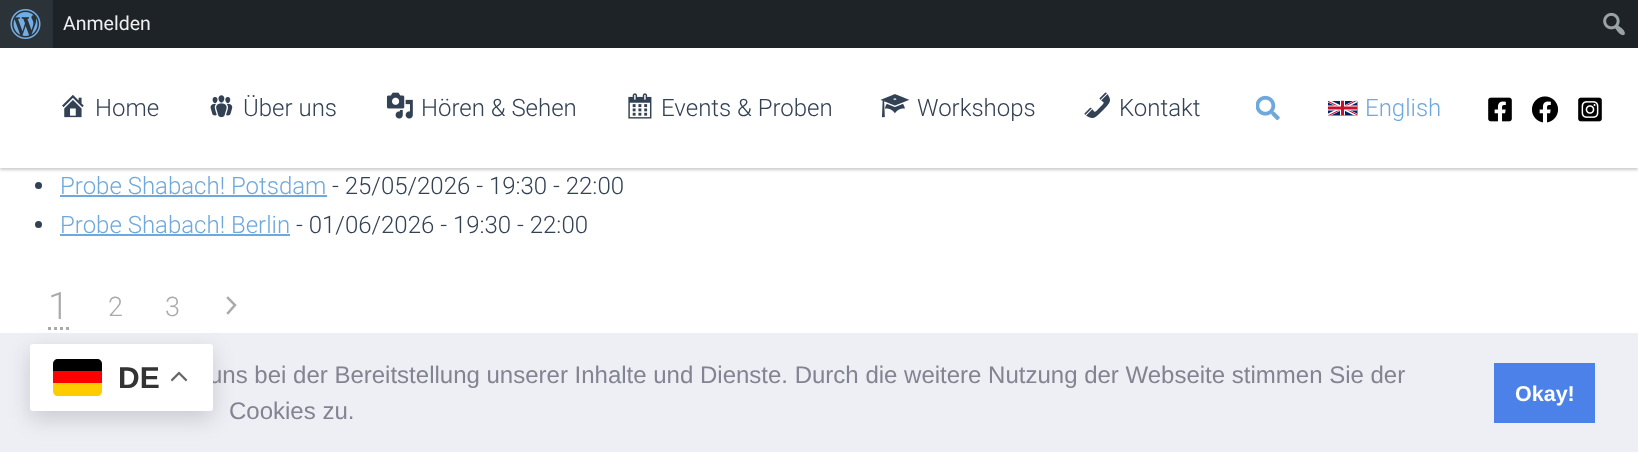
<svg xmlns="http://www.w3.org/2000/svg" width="1638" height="452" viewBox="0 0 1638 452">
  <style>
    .t1 { font: 19.5px Roboto; fill: #f0f0f1; }
    .t2 { font: 300 24px Roboto; fill: #334155; }
    .t3 { font: 300 24px Roboto; fill: #6fa8dc; }
    .t4 { font: 300 38px Roboto; fill: #aaa; }
    .t5 { font: 300 27px Roboto; fill: #aaa; }
    .t6 { font: 24px Liberation Sans; fill: #838391; }
    .t7 { font: bold 30px Liberation Sans; fill: #333; }
    .t8 { font: bold 21.5px Liberation Sans; fill: #fff; }
  </style>
  <rect width="100%" height="100%" fill="#fff"/>
  <rect x="0" y="50" width="1638" height="120" fill="#00000033" filter="blur(1.5px)"/>
  <rect x="53" y="0" width="1585" height="48" fill="#1d2327"/>
  <rect x="0" y="0" width="53" height="48" fill="#2c3338"/>
  <image x="10" y="9" width="31" height="30" href="images/1.png"/>
  <text x="63" y="30" class="t1">Anmelden</text>
  <image x="1603" y="12" width="22" height="24" href="images/2.png"/>
  <rect x="0" y="48" width="1638" height="120" fill="#fff"/>
  <image x="62" y="94" width="22" height="24" href="images/3.png"/>
  <text x="95" y="116" class="t2">Home</text>
  <image x="210" y="95" width="23" height="23" href="images/4.png"/>
  <text x="243" y="116" class="t2">Über uns</text>
  <image x="386" y="92" width="27" height="27" href="images/5.png"/>
  <text x="421" y="116" class="t2">Hören &amp; Sehen</text>
  <image x="628" y="93" width="24" height="26" href="images/6.png"/>
  <text x="661" y="116" class="t2">Events &amp; Proben</text>
  <image x="880" y="94" width="30" height="24" href="images/7.png"/>
  <text x="917" y="116" class="t2">Workshops</text>
  <image x="1084" y="92" width="26" height="26" href="images/8.png"/>
  <text x="1119" y="116" class="t2">Kontakt</text>
  <image x="1256" y="95" width="24" height="26" href="images/9.png"/>
  <image x="1328" y="100" width="30" height="16" href="images/10.png"/>
  <text x="1365" y="116" class="t3">English</text>
  <image x="1488" y="97" width="24" height="25" href="images/11.png"/>
  <image x="1532" y="96" width="27" height="27" href="images/12.png"/>
  <image x="1578" y="97" width="24" height="25" href="images/13.png"/>
  <circle cx="38.5" cy="185.5" r="3.5" fill="#334155"/>
  <text x="60" y="194" class="t3">Probe Shabach! Potsdam</text>
  <rect x="60" y="195" width="267" height="2" fill="#6fa8dc"/>
  <text x="332" y="194" class="t2">- 25/05/2026 - 19:30 - 22:00</text>
  <circle cx="38.5" cy="224.5" r="3.5" fill="#334155"/>
  <text x="60" y="233" class="t3">Probe Shabach! Berlin</text>
  <rect x="60" y="234" width="230" height="2" fill="#6fa8dc"/>
  <text x="296" y="233" class="t2">- 01/06/2026 - 19:30 - 22:00</text>
  <text x="48" y="319" class="t4">1</text>
  <path d="M48 328.5H51M54 328.5H57M60 328.5H63M66 328.5H69" fill="none" stroke="#aaa" stroke-width="3"/>
  <text x="108" y="316" class="t5">2</text>
  <text x="165" y="316" class="t5">3</text>
  <path d="M228 313L235 305L228 298" fill="none" stroke="#aaa" stroke-width="2.5" stroke-linecap="square"/>
  <rect x="0" y="333" width="1638" height="119" fill="#edeff5"/>
  <rect x="30" y="351" width="183" height="68" rx="3" fill="#00000026" filter="blur(11px)"/>
  <text x="209" y="383" class="t6">uns bei der Bereitstellung unserer Inhalte und Dienste. Durch die weitere Nutzung der Webseite stimmen Sie der</text>
  <rect x="30" y="344" width="183" height="67" rx="3" fill="#fff"/>
  <path d="M53 383H102V391C102 394 100 396 97 396H58C55 396 53 394 53 391Z" fill="#fc0"/>
  <path d="M58 359H97C100 359 102 361 102 364V371H53V364C53 361 55 359 58 359Z" fill="#000"/>
  <rect x="53" y="371" width="49" height="12" fill="#f00"/>
  <text x="118" y="388" class="t7">DE</text>
  <image x="171" y="371" width="17" height="11" href="images/14.png"/>
  <text x="229" y="419" class="t6">Cookies zu.</text>
  <rect x="1494" y="363" width="101" height="60" fill="#4b81e8"/>
  <text x="1515" y="401" class="t8">Okay!</text>
</svg>
